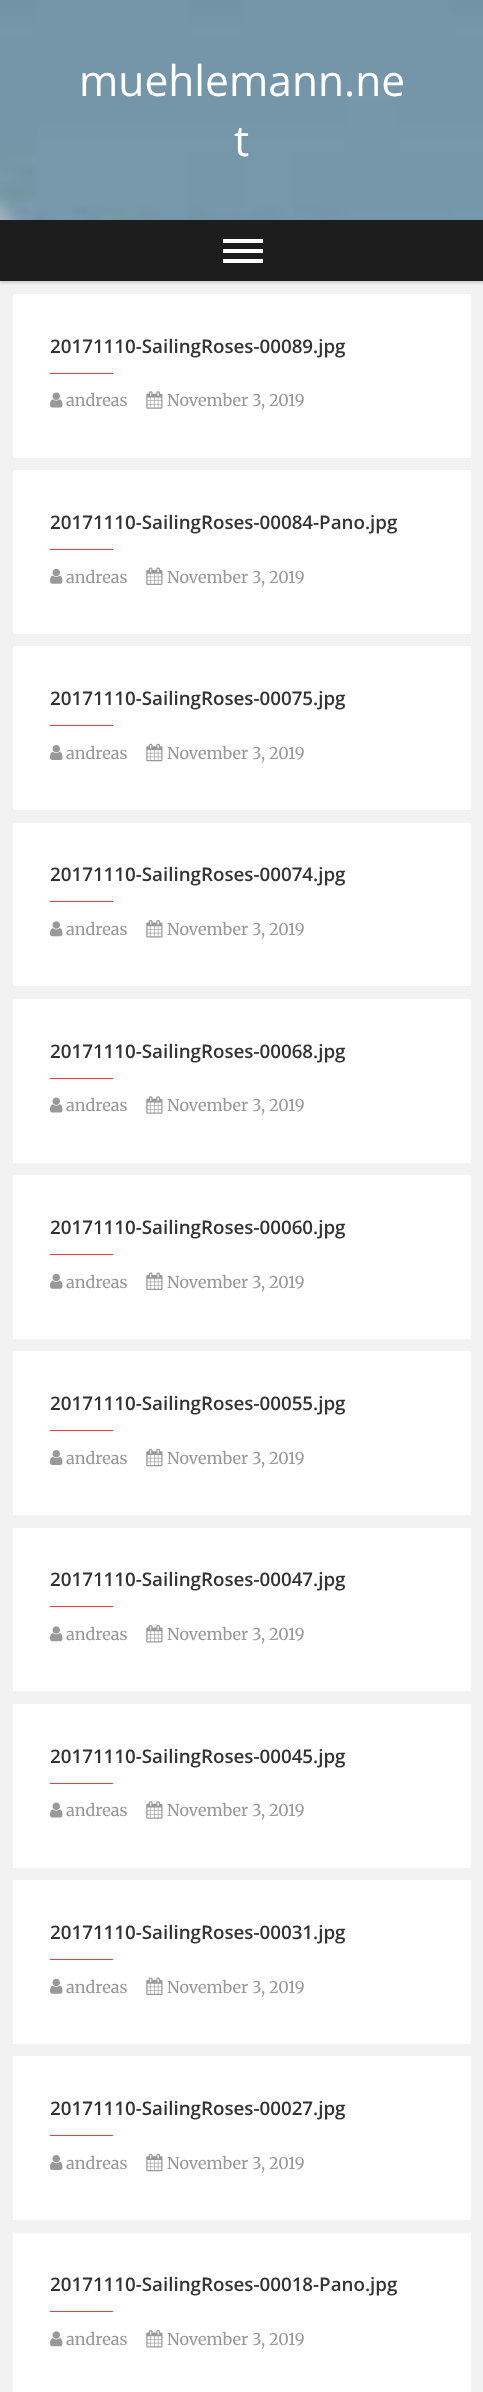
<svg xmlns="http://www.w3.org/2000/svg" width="483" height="2392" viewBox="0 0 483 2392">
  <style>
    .t1 { font: 42.5px Open Sans; fill: #fff; }
    .t2 { font: 600 18.75px Open Sans; fill: #333; }
    .t3 { font: 300 16.25px Merriweather; fill: #999; }
  </style>
  <rect width="100%" height="100%" fill="#fff"/>
  <image x="0" y="0" width="483" height="220" href="images/1.png"/>
  <text x="79" y="96" class="t1">muehlemann.ne</text>
  <text x="234" y="156" class="t1">t</text>
  <rect x="0" y="281" width="483" height="2111" fill="#f2f2f2"/>
  <rect x="0" y="221" width="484" height="62" fill="#00000026" filter="blur(1px)"/>
  <rect x="0" y="220" width="483" height="61" fill="#1d1d1d"/>
  <rect x="223" y="239" width="40" height="4" fill="#fff"/>
  <rect x="223" y="249" width="40" height="4" fill="#fff"/>
  <rect x="223" y="259" width="40" height="4" fill="#fff"/>
  <rect x="13" y="294" width="458" height="164" fill="#fff"/>
  <text x="50" y="353" class="t2">20171110-SailingRoses-00089.jpg</text>
  <rect x="50" y="373" width="63" height="1" fill="#ff3838"/>
  <image x="50" y="392" width="13" height="16" href="images/2.png"/>
  <text x="66" y="406" class="t3">andreas</text>
  <image x="146" y="391" width="17" height="18" href="images/3.png"/>
  <text x="167" y="406" class="t3">November 3, 2019</text>
  <rect x="13" y="470" width="458" height="164" fill="#fff"/>
  <text x="50" y="529" class="t2">20171110-SailingRoses-00084-Pano.jpg</text>
  <rect x="50" y="549" width="63" height="1" fill="#ff3838"/>
  <image x="50" y="568" width="13" height="16" href="images/4.png"/>
  <text x="66" y="583" class="t3">andreas</text>
  <image x="146" y="567" width="17" height="18" href="images/5.png"/>
  <text x="167" y="583" class="t3">November 3, 2019</text>
  <rect x="13" y="646" width="458" height="164" fill="#fff"/>
  <text x="50" y="705" class="t2">20171110-SailingRoses-00075.jpg</text>
  <rect x="50" y="725" width="63" height="1" fill="#ff3838"/>
  <image x="50" y="745" width="13" height="15" href="images/6.png"/>
  <text x="66" y="759" class="t3">andreas</text>
  <image x="146" y="743" width="17" height="19" href="images/7.png"/>
  <text x="167" y="759" class="t3">November 3, 2019</text>
  <rect x="13" y="823" width="458" height="163" fill="#fff"/>
  <text x="50" y="881" class="t2">20171110-SailingRoses-00074.jpg</text>
  <rect x="50" y="901" width="63" height="1" fill="#ff3838"/>
  <image x="50" y="921" width="13" height="16" href="images/8.png"/>
  <text x="66" y="935" class="t3">andreas</text>
  <image x="146" y="920" width="17" height="18" href="images/9.png"/>
  <text x="167" y="935" class="t3">November 3, 2019</text>
  <rect x="13" y="999" width="458" height="164" fill="#fff"/>
  <text x="50" y="1058" class="t2">20171110-SailingRoses-00068.jpg</text>
  <rect x="50" y="1078" width="63" height="1" fill="#ff3838"/>
  <image x="50" y="1097" width="13" height="16" href="images/2.png"/>
  <text x="66" y="1111" class="t3">andreas</text>
  <image x="146" y="1096" width="17" height="18" href="images/3.png"/>
  <text x="167" y="1111" class="t3">November 3, 2019</text>
  <rect x="13" y="1175" width="458" height="164" fill="#fff"/>
  <text x="50" y="1234" class="t2">20171110-SailingRoses-00060.jpg</text>
  <rect x="50" y="1254" width="63" height="1" fill="#ff3838"/>
  <image x="50" y="1273" width="13" height="16" href="images/4.png"/>
  <text x="66" y="1288" class="t3">andreas</text>
  <image x="146" y="1272" width="17" height="18" href="images/5.png"/>
  <text x="167" y="1288" class="t3">November 3, 2019</text>
  <rect x="13" y="1351" width="458" height="164" fill="#fff"/>
  <text x="50" y="1410" class="t2">20171110-SailingRoses-00055.jpg</text>
  <rect x="50" y="1430" width="63" height="1" fill="#ff3838"/>
  <image x="50" y="1450" width="13" height="15" href="images/6.png"/>
  <text x="66" y="1464" class="t3">andreas</text>
  <image x="146" y="1448" width="17" height="19" href="images/7.png"/>
  <text x="167" y="1464" class="t3">November 3, 2019</text>
  <rect x="13" y="1528" width="458" height="163" fill="#fff"/>
  <text x="50" y="1586" class="t2">20171110-SailingRoses-00047.jpg</text>
  <rect x="50" y="1606" width="63" height="1" fill="#ff3838"/>
  <image x="50" y="1626" width="13" height="16" href="images/8.png"/>
  <text x="66" y="1640" class="t3">andreas</text>
  <image x="146" y="1625" width="17" height="18" href="images/9.png"/>
  <text x="167" y="1640" class="t3">November 3, 2019</text>
  <rect x="13" y="1704" width="458" height="164" fill="#fff"/>
  <text x="50" y="1763" class="t2">20171110-SailingRoses-00045.jpg</text>
  <rect x="50" y="1783" width="63" height="1" fill="#ff3838"/>
  <image x="50" y="1802" width="13" height="16" href="images/2.png"/>
  <text x="66" y="1816" class="t3">andreas</text>
  <image x="146" y="1801" width="17" height="18" href="images/3.png"/>
  <text x="167" y="1816" class="t3">November 3, 2019</text>
  <rect x="13" y="1880" width="458" height="164" fill="#fff"/>
  <text x="50" y="1939" class="t2">20171110-SailingRoses-00031.jpg</text>
  <rect x="50" y="1959" width="63" height="1" fill="#ff3838"/>
  <image x="50" y="1978" width="13" height="16" href="images/4.png"/>
  <text x="66" y="1993" class="t3">andreas</text>
  <image x="146" y="1977" width="17" height="18" href="images/5.png"/>
  <text x="167" y="1993" class="t3">November 3, 2019</text>
  <rect x="13" y="2056" width="458" height="164" fill="#fff"/>
  <text x="50" y="2115" class="t2">20171110-SailingRoses-00027.jpg</text>
  <rect x="50" y="2135" width="63" height="1" fill="#ff3838"/>
  <image x="50" y="2155" width="13" height="15" href="images/6.png"/>
  <text x="66" y="2169" class="t3">andreas</text>
  <image x="146" y="2153" width="17" height="19" href="images/7.png"/>
  <text x="167" y="2169" class="t3">November 3, 2019</text>
  <rect x="13" y="2233" width="458" height="159" fill="#fff"/>
  <text x="50" y="2291" class="t2">20171110-SailingRoses-00018-Pano.jpg</text>
  <rect x="50" y="2311" width="63" height="1" fill="#ff3838"/>
  <image x="50" y="2331" width="13" height="16" href="images/8.png"/>
  <text x="66" y="2345" class="t3">andreas</text>
  <image x="146" y="2330" width="17" height="18" href="images/9.png"/>
  <text x="167" y="2345" class="t3">November 3, 2019</text>
</svg>
